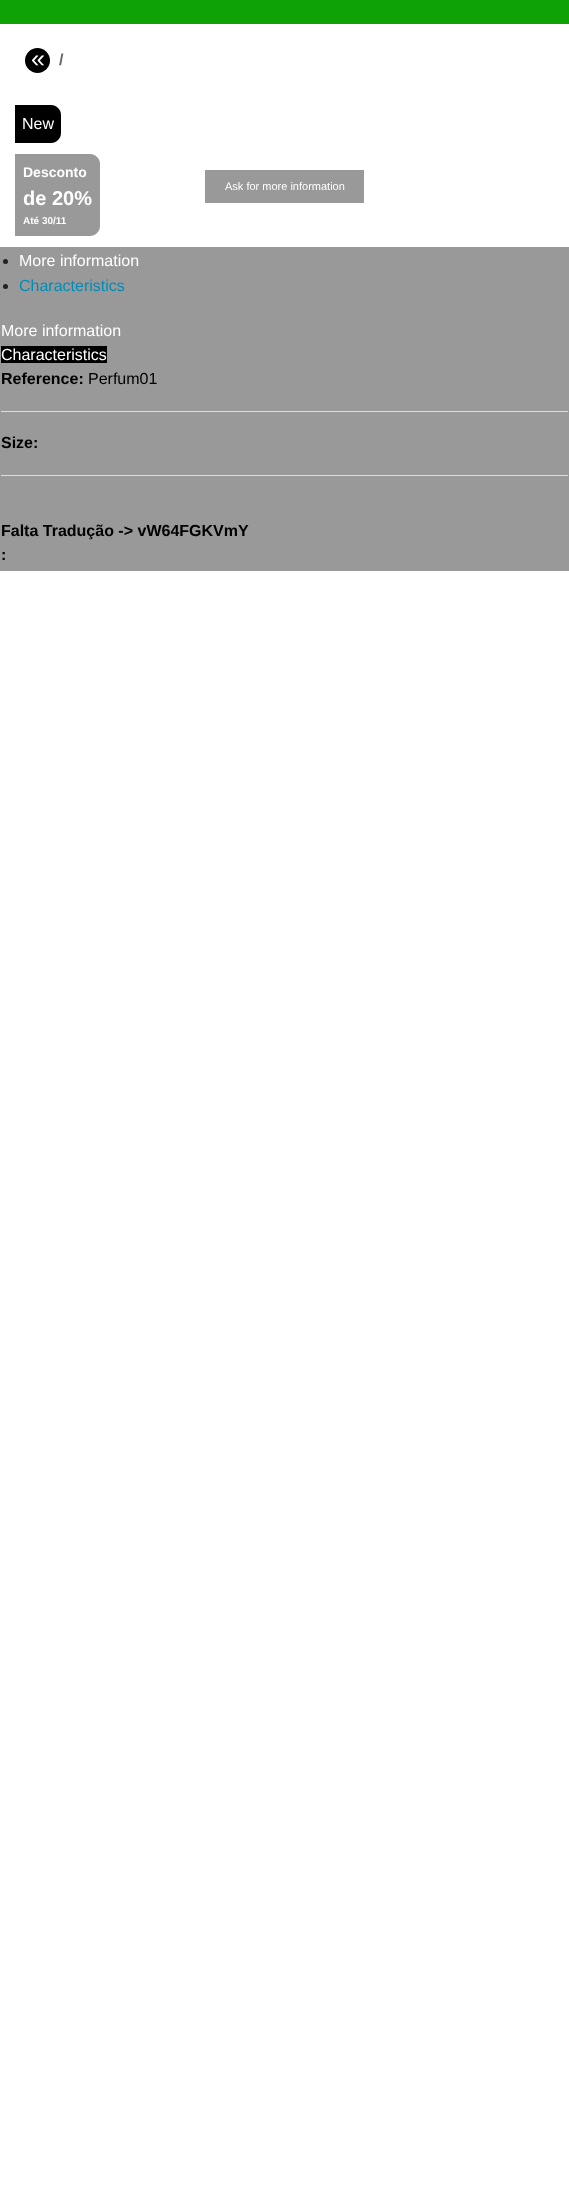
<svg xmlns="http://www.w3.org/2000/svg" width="569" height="2190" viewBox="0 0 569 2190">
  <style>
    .t1 { font: 25px Liberation Sans; fill: #fff; }
    .t2 { font: bold 16px Liberation Sans; fill: #676665; }
    .t3 { font: 16px Liberation Sans; fill: #fff; }
    .t4 { font: bold 14px Liberation Sans; fill: #fff; }
    .t5 { font: bold 20px Liberation Sans; fill: #fff; }
    .t6 { font: bold 10px Liberation Sans; fill: #fff; }
    .t7 { font: 11px Liberation Sans; fill: #fff; }
    .t8 { font: 16px Liberation Sans; fill: #008cba; }
    .t9 { font: bold 16px Liberation Sans; fill: #000; }
    .t10 { font: 16px Liberation Sans; fill: #000; }
  </style>
  <rect width="100%" height="100%" fill="#fff"/>
  <rect x="0" y="0" width="569" height="24" fill="#0fa207"/>
  <circle cx="37.5" cy="60.5" r="12.5" fill="#000"/>
  <text x="31" y="67" class="t1">«</text>
  <text x="59" y="65" class="t2">/</text>
  <path d="M15 105H51C56.5 105 61 109.5 61 115V133C61 138.5 56.5 143 51 143H15Z" fill="#000"/>
  <text x="22" y="129" class="t3">New</text>
  <path d="M15 154H90C95.5 154 100 158.5 100 164V226C100 231.5 95.5 236 90 236H15Z" fill="#999"/>
  <text x="23" y="177" class="t4">Desconto</text>
  <text x="23" y="205" class="t5">de 20%</text>
  <text x="23" y="224" class="t6">Até 30/11</text>
  <rect x="205" y="170" width="159" height="33" fill="#999"/>
  <text x="225" y="190" class="t7">Ask for more information</text>
  <rect x="1" y="248" width="567" height="319" fill="#999"/>
  <rect x="0" y="247" width="569" height="1" fill="#999"/>
  <rect x="568" y="247" width="1" height="324" fill="#999"/>
  <rect x="0" y="567" width="569" height="4" fill="#999"/>
  <rect x="0" y="247" width="1" height="324" fill="#999"/>
  <circle cx="5.5" cy="261.5" r="2.5" fill="#222"/>
  <text x="19" y="266" class="t3">More information</text>
  <circle cx="5.5" cy="286.5" r="2.5" fill="#222"/>
  <text x="19" y="291" class="t8">Characteristics</text>
  <text x="1" y="336" class="t3">More information</text>
  <rect x="1" y="346" width="106" height="17" fill="#000"/>
  <text x="1" y="360" class="t3">Characteristics</text>
  <text x="1" y="384" class="t9">Reference:</text>
  <text x="88" y="384" class="t10">Perfum01</text>
  <rect x="1" y="411" width="567" height="1" fill="#ddd"/>
  <text x="1" y="448" class="t9">Size:</text>
  <rect x="1" y="475" width="567" height="1" fill="#ddd"/>
  <text x="1" y="536" class="t9">Falta Tradução -&gt; vW64FGKVmY</text>
  <text x="1" y="560" class="t9">:</text>
</svg>
